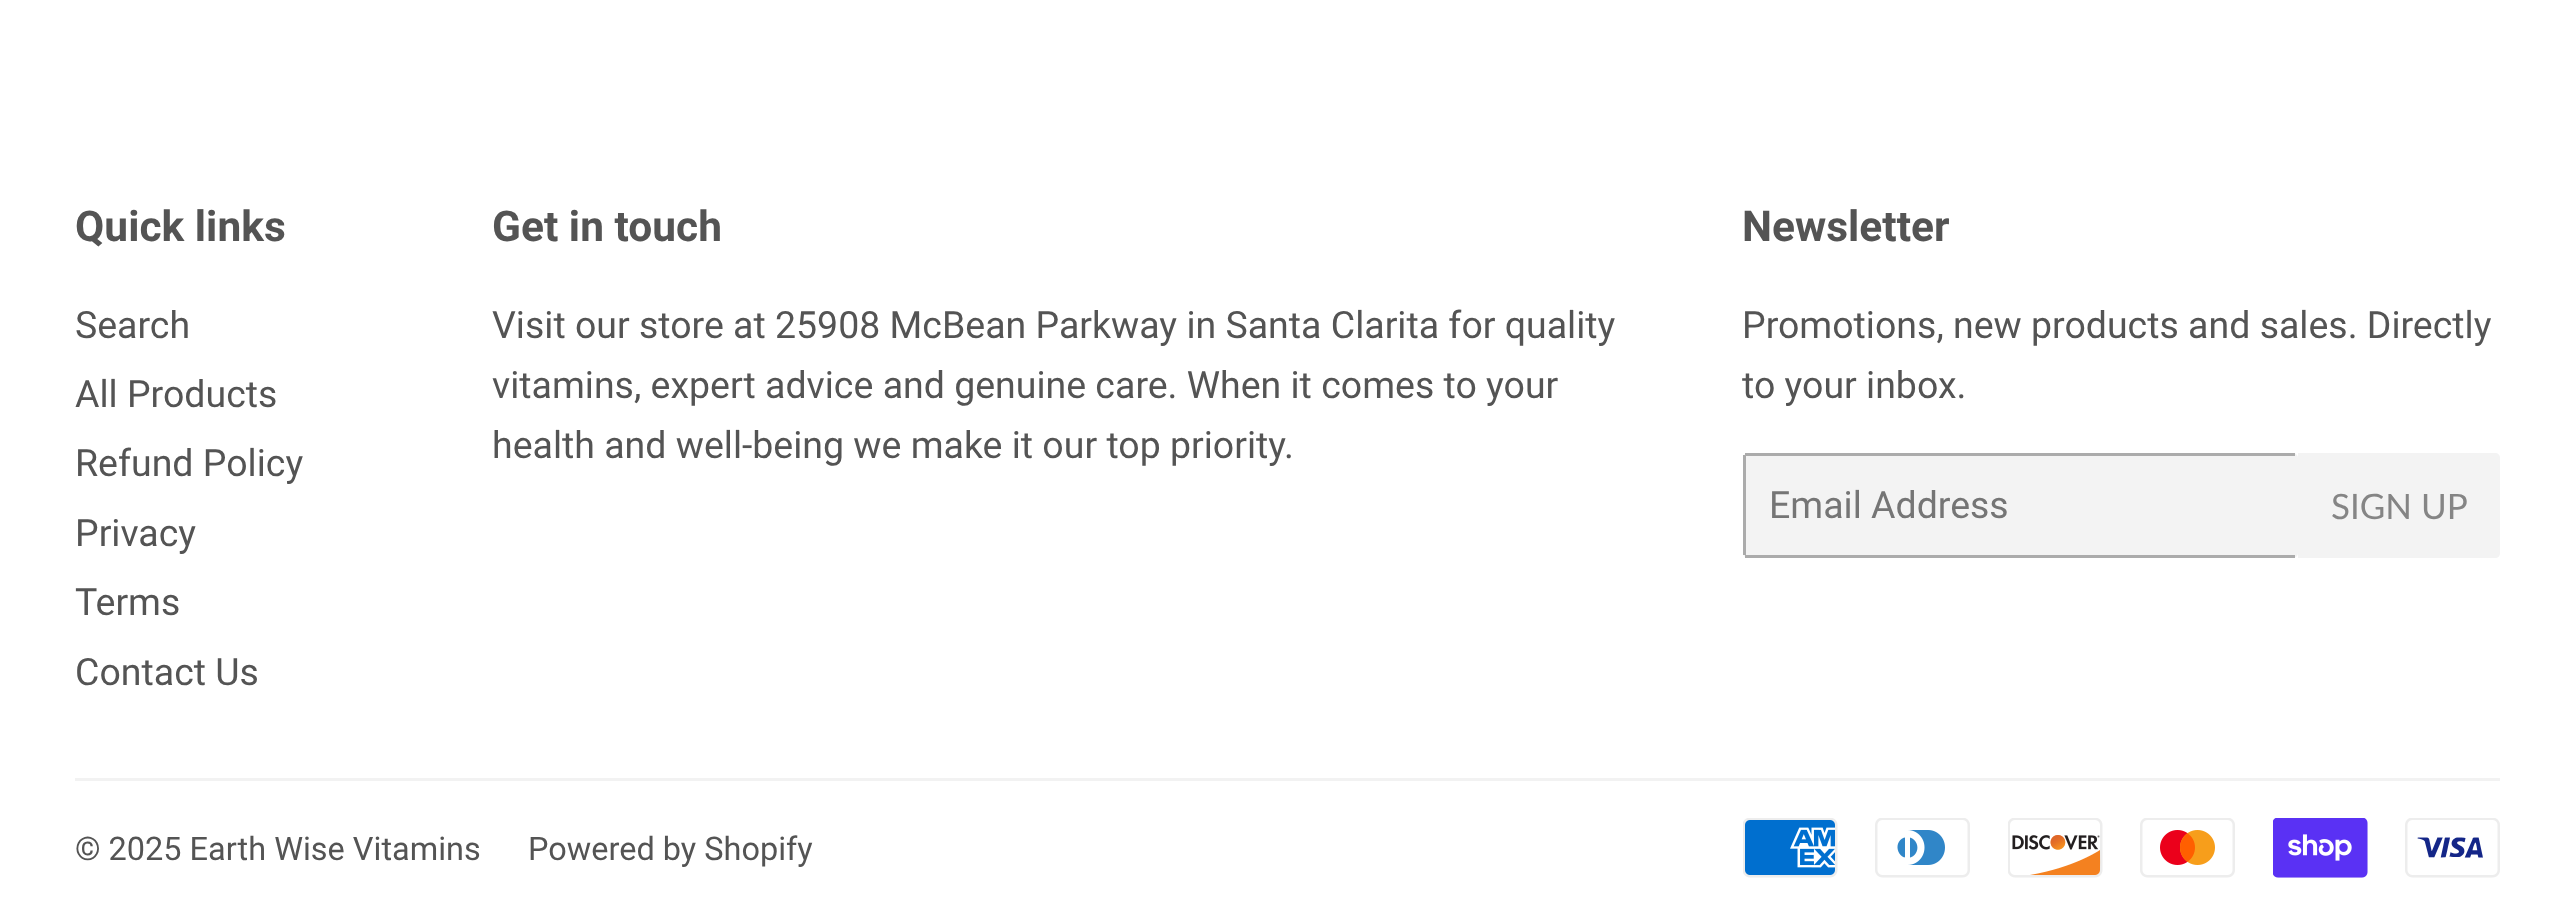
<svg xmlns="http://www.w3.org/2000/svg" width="2574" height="916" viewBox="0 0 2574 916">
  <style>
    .t1 { font: bold 42.5px Roboto; fill: #545454; }
    .t2 { font: 37.5px Roboto; fill: #545454; }
    .t3 { font: 37.5px Roboto; fill: #757575; }
    .t4 { font: 35px Lato; fill: #858585; }
    .t5 { font: 32.5px Roboto; fill: #545454; }
  </style>
  <rect width="100%" height="100%" fill="#fff"/>
  <text x="75" y="241" class="t1">Quick links</text>
  <text x="75" y="338" class="t2">Search</text>
  <text x="75" y="407" class="t2">All Products</text>
  <text x="75" y="476" class="t2">Refund Policy</text>
  <text x="75" y="546" class="t2">Privacy</text>
  <text x="75" y="615" class="t2">Terms</text>
  <text x="75" y="685" class="t2">Contact Us</text>
  <text x="492" y="241" class="t1">Get in touch</text>
  <text x="492" y="338" class="t2">Visit our store at 25908 McBean Parkway in Santa Clarita for quality</text>
  <text x="492" y="398" class="t2">vitamins, expert advice and genuine care. When it comes to your</text>
  <text x="492" y="458" class="t2">health and well-being we make it our top priority.</text>
  <text x="1742" y="241" class="t1">Newsletter</text>
  <text x="1742" y="338" class="t2">Promotions, new products and sales. Directly</text>
  <text x="1742" y="398" class="t2">to your inbox.</text>
  <rect x="1743" y="453" width="555" height="105" rx="5" fill="#f3f3f3"/>
  <rect x="1745" y="453" width="550" height="3" fill="#ababab"/>
  <rect x="1745" y="555" width="550" height="3" fill="#ababab"/>
  <rect x="1743" y="455" width="3" height="100" fill="#ababab"/>
  <text x="1769" y="518" class="t3">Email Address</text>
  <path d="M2298 453H2495C2498 453 2500 455 2500 458V553C2500 556 2498 558 2495 558H2298Z" fill="#f3f3f3"/>
  <text x="2331" y="519" class="t4">SIGN UP</text>
  <rect x="75" y="778" width="2425" height="3" fill="#f2f2f2"/>
  <text x="75" y="860" class="t5">© 2025 Earth Wise Vitamins</text>
  <text x="528" y="860" class="t5">Powered by Shopify</text>
  <image x="1743" y="818" width="95" height="60" href="images/1.png"/>
  <image x="1875" y="818" width="95" height="60" href="images/2.png"/>
  <image x="2008" y="818" width="95" height="60" href="images/3.png"/>
  <image x="2140" y="818" width="95" height="60" href="images/4.png"/>
  <image x="2273" y="818" width="95" height="60" href="images/5.png"/>
  <image x="2405" y="818" width="95" height="60" href="images/6.png"/>
</svg>
